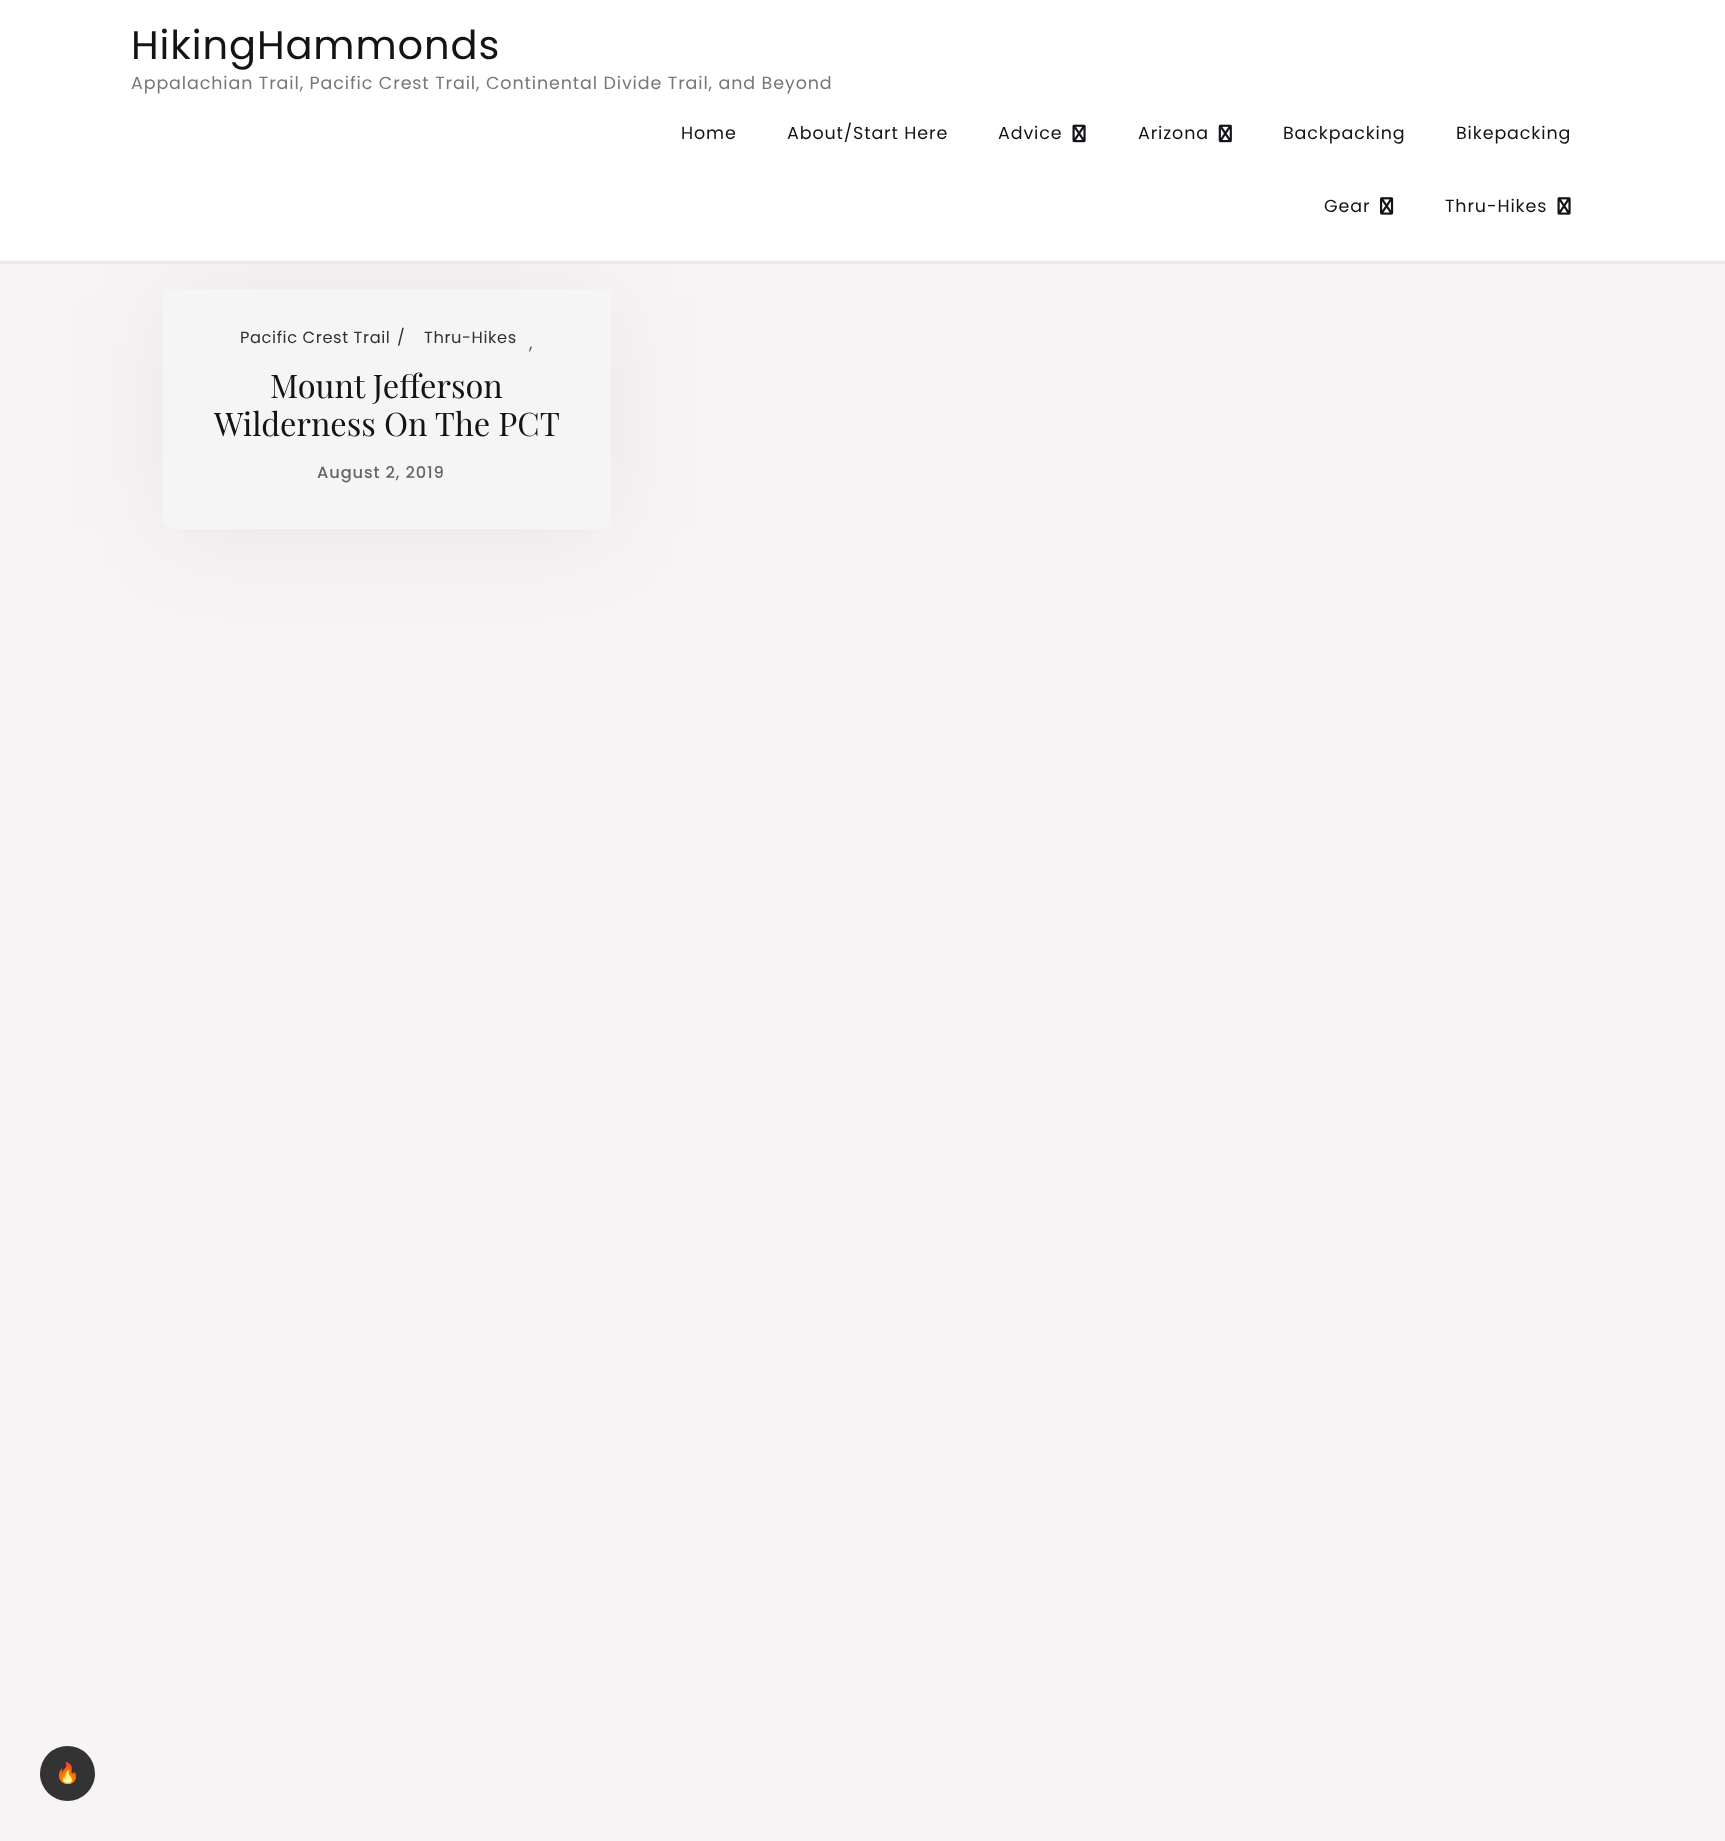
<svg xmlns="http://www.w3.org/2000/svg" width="1725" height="1841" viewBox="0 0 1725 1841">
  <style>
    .t1 { font: 40px Poppins; letter-spacing: 0.88px; fill: #121418; }
    .t2 { font: 17.5px Poppins; letter-spacing: 0.88px; fill: #777; }
    .t3 { font: 17.5px Poppins; letter-spacing: 0.88px; fill: #121418; }
    .t4 { font: 16.25px Poppins; letter-spacing: 0.6px; fill: #313131; }
    .t5 { font: 17.5px Poppins; letter-spacing: 0.88px; fill: #565859; }
    .t6 { font: 32.5px Playfair Display; fill: #121418; }
    .t7 { font: 500 16.25px Poppins; letter-spacing: 0.88px; fill: #666; }
    .t8 { font: bold 20px Noto Color Emoji; letter-spacing: 0.88px; fill: #fff; }
  </style>
  <rect width="100%" height="100%" fill="#f8f3f4"/>
  <rect x="163" y="294" width="448" height="240" rx="10" fill="#0000000f" filter="blur(52.5px)"/>
  <rect x="0" y="0" width="1725" height="261" fill="#fff"/>
  <rect x="0" y="261" width="1725" height="3" fill="#e9e9e9"/>
  <text x="131" y="59" class="t1">HikingHammonds</text>
  <text x="131" y="89" class="t2">Appalachian Trail, Pacific Crest Trail, Continental Divide Trail, and Beyond</text>
  <text x="681" y="139" class="t3">Home</text>
  <text x="787" y="139" class="t3">About/Start Here</text>
  <text x="998" y="139" class="t3">Advice</text>
  <image x="1072" y="124" width="14" height="19" href="images/1.png"/>
  <text x="1138" y="139" class="t3">Arizona</text>
  <image x="1218" y="124" width="14" height="19" href="images/2.png"/>
  <text x="1283" y="139" class="t3">Backpacking</text>
  <text x="1456" y="139" class="t3">Bikepacking</text>
  <text x="1324" y="212" class="t3">Gear</text>
  <image x="1380" y="197" width="14" height="18" href="images/3.png"/>
  <text x="1445" y="212" class="t3">Thru-Hikes</text>
  <image x="1557" y="197" width="14" height="18" href="images/4.png"/>
  <path d="M163 289H611V519C611 524.5 606.5 529 601 529H173C167.5 529 163 524.5 163 519Z" fill="#f5f5f5"/>
  <text x="240" y="343" class="t4">Pacific Crest Trail</text>
  <text x="397" y="343" class="t4">/</text>
  <text x="424" y="343" class="t4">Thru-Hikes</text>
  <text x="529" y="349" class="t5">,</text>
  <text x="270" y="398" class="t6">Mount Jefferson</text>
  <text x="214" y="436" class="t6">Wilderness On The PCT</text>
  <text x="317" y="478" class="t7">August 2, 2019</text>
  <circle cx="67.5" cy="1773.5" r="27.5" fill="#333"/>
  <text x="55" y="1780" class="t8">🔥</text>
</svg>
